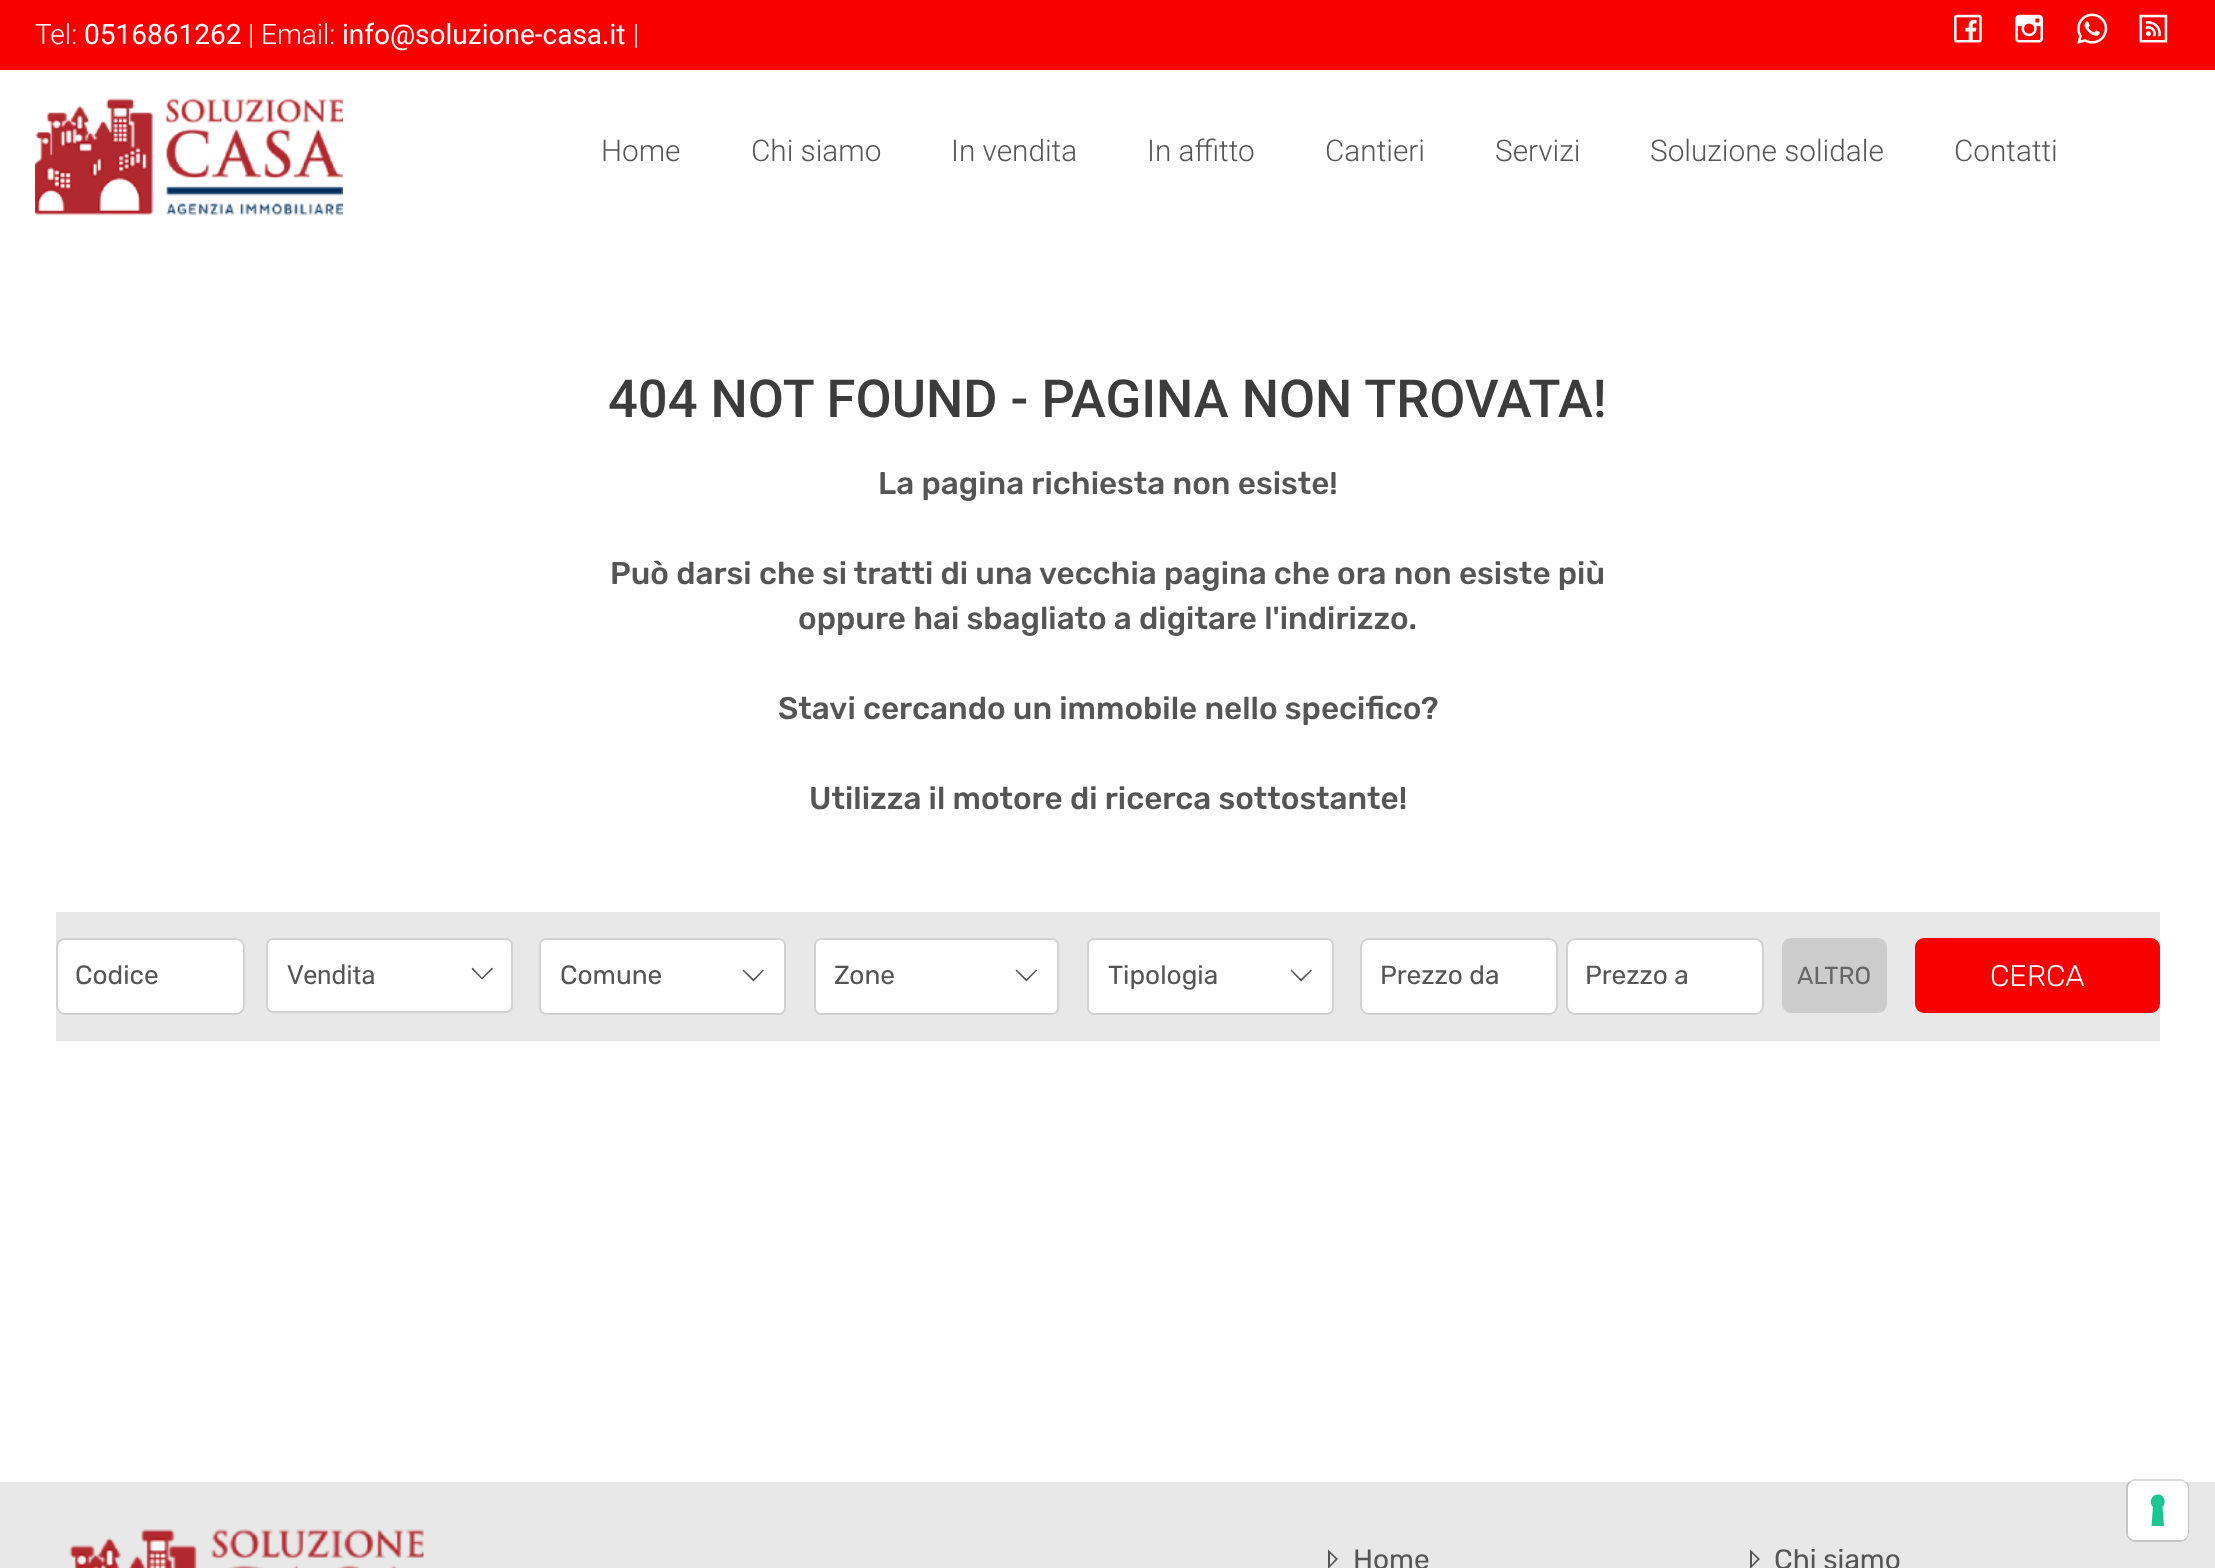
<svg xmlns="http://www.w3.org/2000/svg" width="2215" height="1568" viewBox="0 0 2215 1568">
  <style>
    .t1 { font: 300 28px Roboto; fill: #fff; }
    .t2 { font: 28px Roboto; fill: #fff; }
    .t3 { font: 300 29.75px Roboto; fill: #555; }
    .t4 { font: 500 52.5px Roboto; fill: #3c3c3c; }
    .t5 { font: 500 31.5px Rubik; fill: #555; }
    .t6 { font: 26.25px Rubik; fill: #555; }
    .t7 { font: 26.25px Roboto; fill: #555; }
    .t8 { font: 24.5px Rubik; fill: #666; }
    .t9 { font: 300 29.75px Rubik; fill: #fff; }
    .t10 { font: 28px Rubik; fill: #555; }
  </style>
  <rect width="100%" height="100%" fill="#fff"/>
  <rect x="0" y="0" width="2215" height="70" fill="#f70000"/>
  <text x="35" y="44" class="t1">Tel:</text>
  <text x="84" y="44" class="t2">0516861262</text>
  <text x="248" y="44" class="t1">| Email:</text>
  <text x="342" y="44" class="t2">info@soluzione-casa.it</text>
  <text x="633" y="44" class="t1">|</text>
  <image x="1954" y="14" width="28" height="29" href="images/1.png"/>
  <image x="2015" y="14" width="28" height="29" href="images/2.png"/>
  <image x="2077" y="13" width="31" height="31" href="images/3.png"/>
  <image x="2139" y="14" width="29" height="29" href="images/4.png"/>
  <image x="35" y="98" width="308" height="118" href="images/5.png"/>
  <text x="601" y="161" class="t3">Home</text>
  <text x="751" y="161" class="t3">Chi siamo</text>
  <text x="951" y="161" class="t3">In vendita</text>
  <text x="1147" y="161" class="t3">In affitto</text>
  <text x="1325" y="161" class="t3">Cantieri</text>
  <text x="1495" y="161" class="t3">Servizi</text>
  <text x="1650" y="161" class="t3">Soluzione solidale</text>
  <text x="1954" y="161" class="t3">Contatti</text>
  <text x="608" y="417" class="t4">404 NOT FOUND - PAGINA NON TROVATA!</text>
  <text x="878" y="494" class="t5">La pagina richiesta non esiste!</text>
  <text x="610" y="584" class="t5">Può darsi che si tratti di una vecchia pagina che ora non esiste più</text>
  <text x="798" y="629" class="t5">oppure hai sbagliato a digitare l'indirizzo.</text>
  <text x="778" y="719" class="t5">Stavi cercando un immobile nello specifico?</text>
  <text x="809" y="809" class="t5">Utilizza il motore di ricerca sottostante!</text>
  <rect x="56" y="912" width="2104" height="129" fill="#e8e8e8"/>
  <rect x="57" y="939" width="187" height="75" rx="8" fill="#fff" stroke="#d2d2d2" stroke-width="2"/>
  <text x="75" y="984" class="t6">Codice</text>
  <rect x="267" y="939" width="245" height="73" rx="6" fill="#fff" stroke="#d2d2d2" stroke-width="2"/>
  <text x="287" y="984" class="t7">Vendita</text>
  <path d="M472.5 967.5L482 977.5L492 967.5L493 969L482 979.5L471.5 969Z" fill="#555"/>
  <rect x="540" y="939" width="245" height="75" rx="6" fill="#fff" stroke="#d2d2d2" stroke-width="2"/>
  <text x="560" y="984" class="t6">Comune</text>
  <path d="M743.5 969.5L753.5 979L763 969.5L764 970.5L753.5 981.5L742.5 970.5Z" fill="#555"/>
  <rect x="815" y="939" width="243" height="75" rx="6" fill="#fff" stroke="#d2d2d2" stroke-width="2"/>
  <text x="834" y="984" class="t6">Zone</text>
  <path d="M1016.5 969.5L1026.5 979L1036 969.5L1037 970.5L1026.5 981.5L1015.5 970.5Z" fill="#555"/>
  <rect x="1088" y="939" width="245" height="75" rx="6" fill="#fff" stroke="#d2d2d2" stroke-width="2"/>
  <text x="1108" y="984" class="t6">Tipologia</text>
  <path d="M1291.5 969.5L1301 979L1311 969.5L1312 970.5L1301 981.5L1290.5 970.5Z" fill="#555"/>
  <rect x="1361" y="939" width="196" height="75" rx="8" fill="#fff" stroke="#d2d2d2" stroke-width="2"/>
  <text x="1380" y="984" class="t6">Prezzo da</text>
  <rect x="1567" y="939" width="196" height="75" rx="8" fill="#fff" stroke="#d2d2d2" stroke-width="2"/>
  <text x="1585" y="984" class="t6">Prezzo a</text>
  <rect x="1782" y="938" width="105" height="75" rx="9" fill="#ccc"/>
  <text x="1797" y="984" class="t8">ALTRO</text>
  <rect x="1915" y="938" width="245" height="75" rx="9" fill="#f70000"/>
  <text x="1990" y="986" class="t9">CERCA</text>
  <rect x="0" y="1486" width="2215" height="82" fill="#e8e8e8"/>
  <rect x="0" y="1482" width="2215" height="4" fill="#e6e6e6"/>
  <rect x="2127" y="1480" width="61" height="61" rx="8" fill="none" stroke="#00000026" stroke-width="2"/>
  <rect x="2128" y="1481" width="60" height="59" rx="7" fill="#fff"/>
  <path d="M2158 1494.5C2164 1494.5 2167 1502.5 2162.5 1507L2164 1526H2151.5L2153 1507C2148.5 1502.5 2151.5 1494.5 2158 1494.5Z" fill="#1cc691" fill-rule="evenodd"/>
  <image x="69" y="1529" width="355" height="39" href="images/6.png"/>
  <path d="M1328 1549.5L1338 1559L1328 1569ZM1330 1553.5V1565L1335.5 1559Z" fill="#555"/>
  <text x="1353" y="1569" class="t10">Home</text>
  <path d="M1750 1549.5L1760 1559L1750 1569ZM1752 1553.5V1565L1757.5 1559Z" fill="#555"/>
  <text x="1774" y="1569" class="t10">Chi siamo</text>
</svg>
